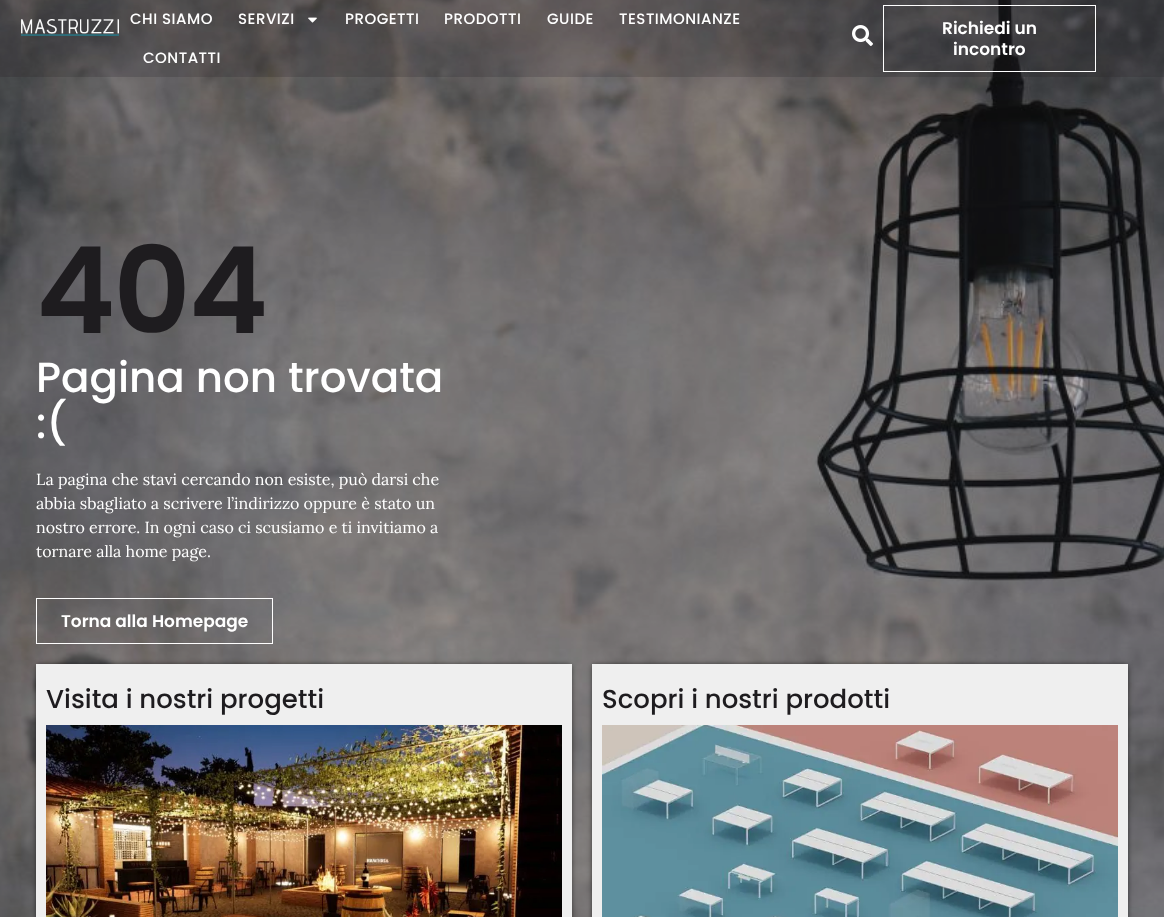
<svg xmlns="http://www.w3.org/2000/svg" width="1164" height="917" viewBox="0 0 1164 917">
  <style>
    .t1 { font: 500 15px Poppins; letter-spacing: 0.5px; fill: #fff; }
    .t2 { font: 600 17px Poppins; fill: #fff; }
    .t3 { font: 600 120px Poppins; letter-spacing: -2px; fill: #1e1c1f; }
    .t4 { font: 500 42px Poppins; fill: #fff; }
    .t5 { font: 16px Lora; fill: #fff; }
    .t6 { font: 500 26px Poppins; fill: #1e1c1f; }
  </style>
  <rect width="100%" height="100%" fill="#fff"/>
  <image x="0" y="0" width="1164" height="917" href="images/4.png"/>
  <rect x="0" y="0" width="1164" height="77" fill="#1e1c1f30"/>
  <image x="21" y="19" width="98" height="17" href="images/1.png"/>
  <text x="130" y="24" class="t1">CHI SIAMO</text>
  <text x="238" y="24" class="t1">SERVIZI</text>
  <image x="308" y="17" width="9" height="6" href="images/2.png"/>
  <text x="345" y="24" class="t1">PROGETTI</text>
  <text x="444" y="24" class="t1">PRODOTTI</text>
  <text x="547" y="24" class="t1">GUIDE</text>
  <text x="619" y="24" class="t1">TESTIMONIANZE</text>
  <text x="143" y="63" class="t1">CONTATTI</text>
  <image x="852" y="25" width="21" height="21" href="images/3.png"/>
  <rect x="883.5" y="5.5" width="212" height="66" fill="none" stroke="#fff"/>
  <text x="942" y="34" class="t2">Richiedi un</text>
  <text x="953" y="55" class="t2">incontro</text>
  <text x="36" y="333" class="t3">404</text>
  <text x="36" y="392" class="t4">Pagina non trovata</text>
  <text x="36" y="438" class="t4">:(</text>
  <text x="36" y="485" class="t5">La pagina che stavi cercando non esiste, può darsi che</text>
  <text x="36" y="509" class="t5">abbia sbagliato a scrivere l’indirizzo oppure è stato un</text>
  <text x="36" y="533" class="t5">nostro errore. In ogni caso ci scusiamo e ti invitiamo a</text>
  <text x="36" y="557" class="t5">tornare alla home page.</text>
  <rect x="36.5" y="598.5" width="236" height="45" fill="none" stroke="#fff"/>
  <text x="61" y="627" class="t2">Torna alla Homepage</text>
  <rect x="36" y="664" width="536" height="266" rx="5" fill="#00000080" filter="blur(2.5px)"/>
  <rect x="36" y="664" width="536" height="253" fill="#efefef"/>
  <text x="46" y="708" class="t6">Visita i nostri progetti</text>
  <image x="46" y="725" width="516" height="192" href="images/5.png"/>
  <rect x="592" y="664" width="536" height="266" rx="5" fill="#00000080" filter="blur(2.5px)"/>
  <rect x="592" y="664" width="536" height="253" fill="#efefef"/>
  <text x="602" y="708" class="t6">Scopri i nostri prodotti</text>
  <image x="602" y="725" width="516" height="192" href="images/6.png"/>
</svg>
